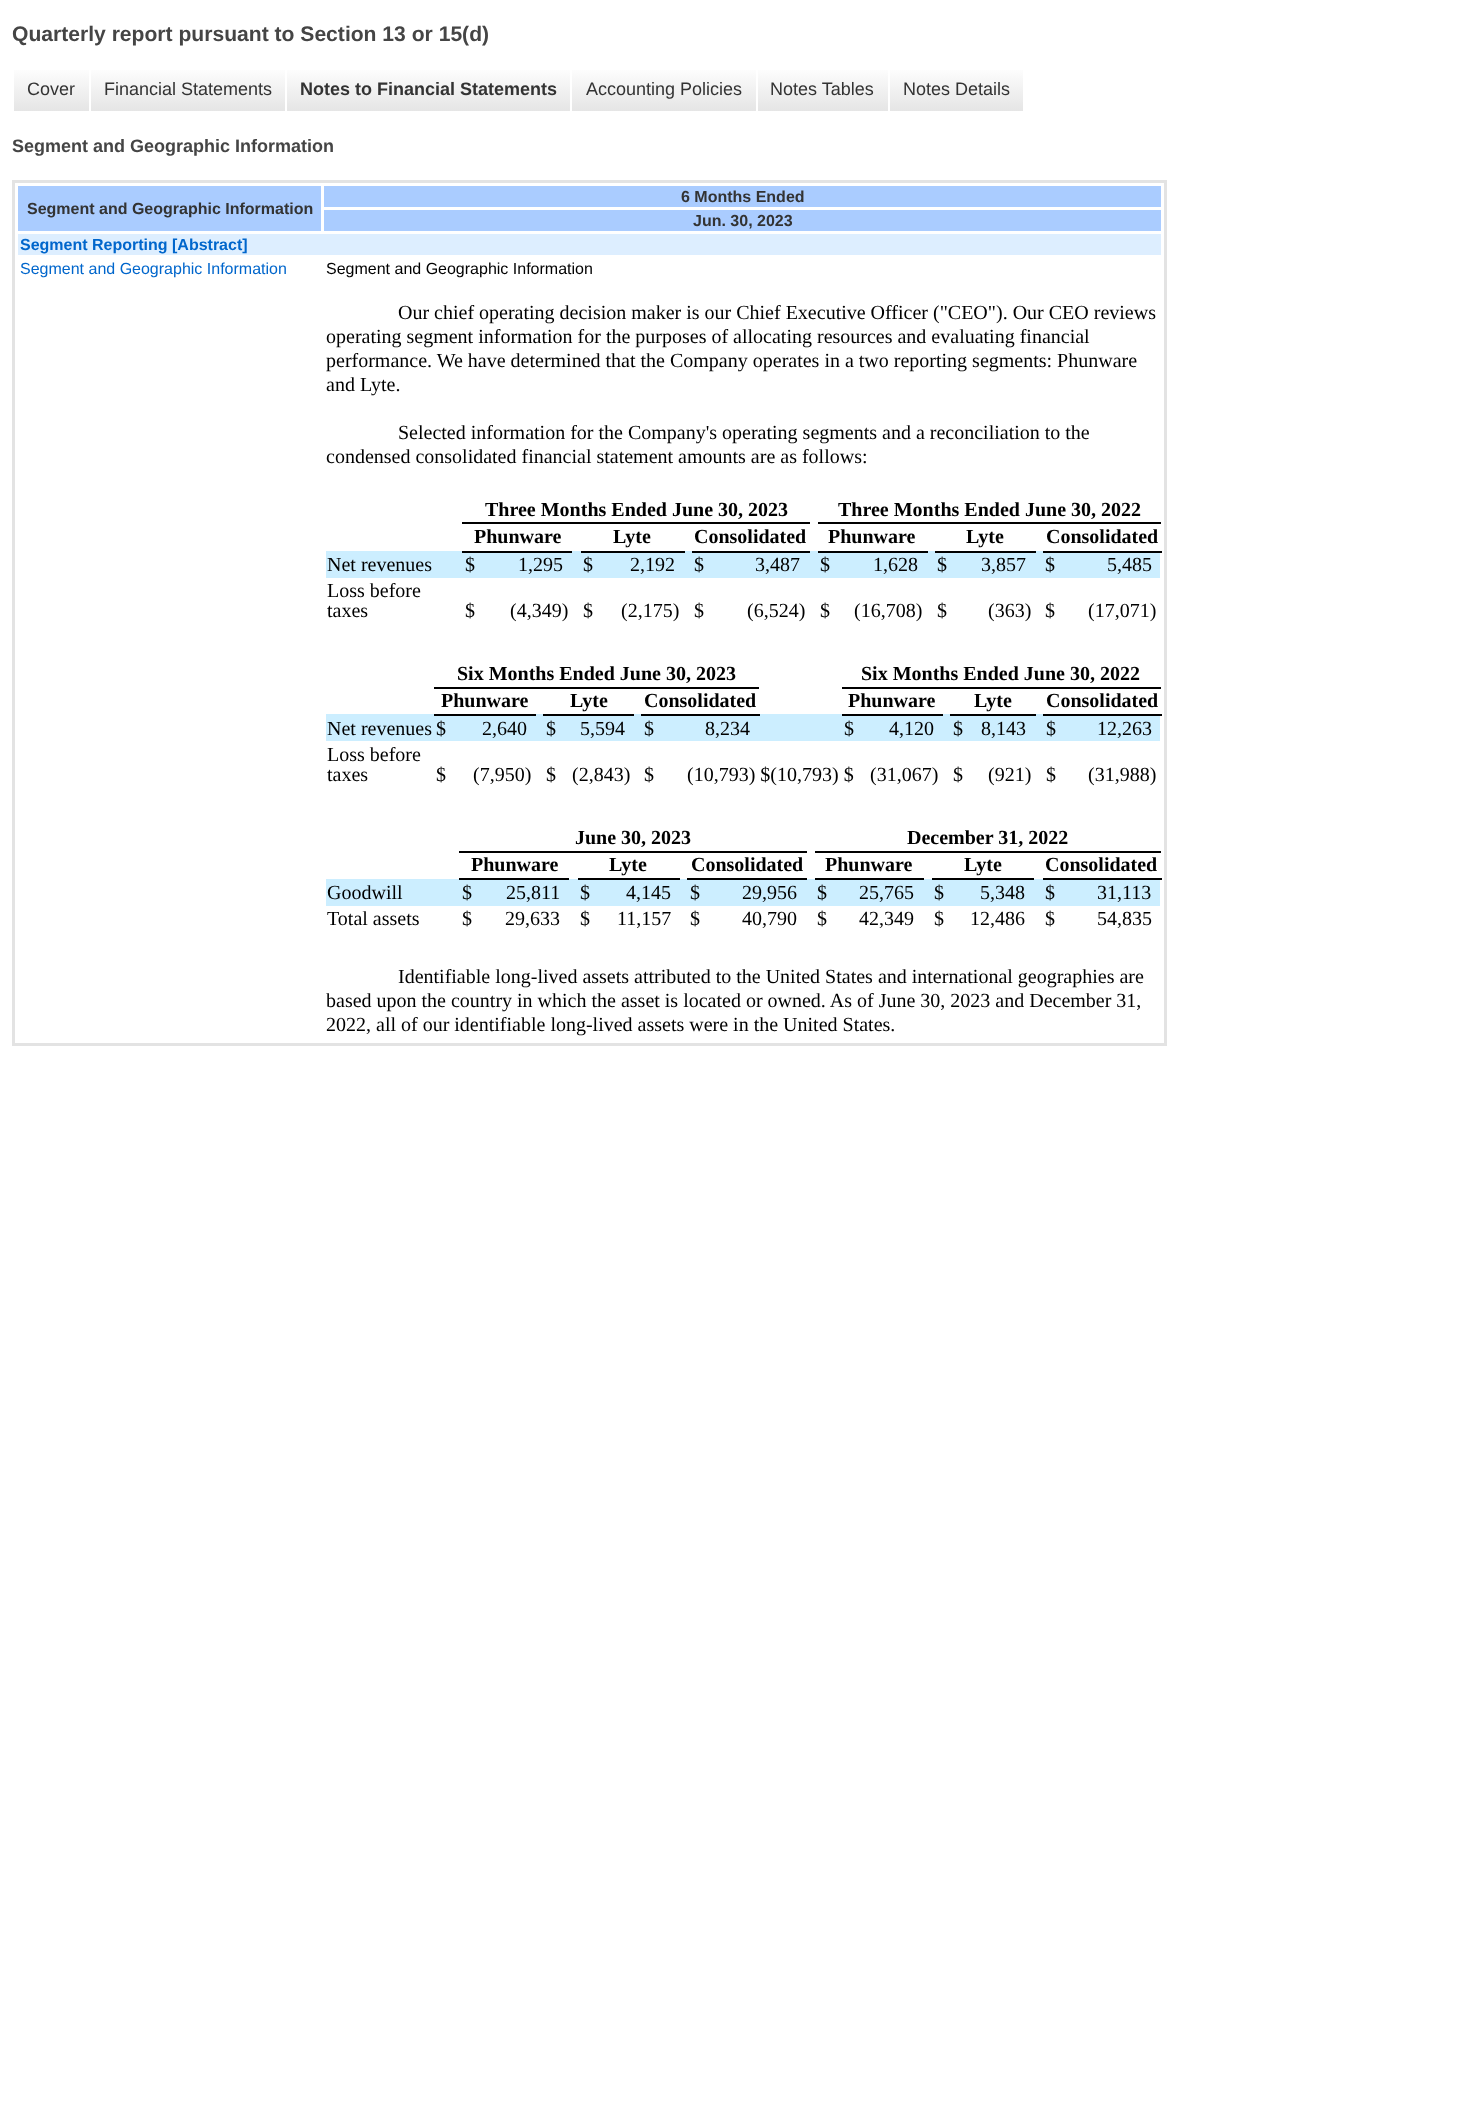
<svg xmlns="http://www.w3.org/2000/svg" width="1468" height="2128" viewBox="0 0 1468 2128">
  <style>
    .t1 { font: bold 21.1px Liberation Sans; fill: #454545; }
    .t2 { font: 18px Liberation Sans; fill: #333; }
    .t3 { font: bold 18px Liberation Sans; fill: #333; }
    .t4 { font: bold 18px Liberation Sans; fill: #454545; }
    .t5 { font: bold 16px Liberation Sans; fill: #333; }
    .t6 { font: bold 16px Liberation Sans; fill: #06c; }
    .t7 { font: 16px Liberation Sans; fill: #06c; }
    .t8 { font: 16px Liberation Sans; fill: #000; }
    .t9 { font: 20px Liberation Serif; fill: #000; }
    .t10 { font: bold 20px Liberation Serif; fill: #000; }
  </style>
  <defs>
    <linearGradient id="g1" gradientUnits="userSpaceOnUse" x1="51" y1="66" x2="51" y2="111"><stop offset="0" stop-color="#fff"/><stop offset="1" stop-color="#e5e5e5"/></linearGradient>
    <linearGradient id="g2" gradientUnits="userSpaceOnUse" x1="188" y1="66" x2="188" y2="111"><stop offset="0" stop-color="#fff"/><stop offset="1" stop-color="#e5e5e5"/></linearGradient>
    <linearGradient id="g3" gradientUnits="userSpaceOnUse" x1="428" y1="66" x2="428" y2="111"><stop offset="0" stop-color="#fff"/><stop offset="1" stop-color="#e5e5e5"/></linearGradient>
    <linearGradient id="g4" gradientUnits="userSpaceOnUse" x1="664" y1="66" x2="664" y2="111"><stop offset="0" stop-color="#fff"/><stop offset="1" stop-color="#e5e5e5"/></linearGradient>
    <linearGradient id="g5" gradientUnits="userSpaceOnUse" x1="823" y1="66" x2="823" y2="111"><stop offset="0" stop-color="#fff"/><stop offset="1" stop-color="#e5e5e5"/></linearGradient>
    <linearGradient id="g6" gradientUnits="userSpaceOnUse" x1="956" y1="66" x2="956" y2="111"><stop offset="0" stop-color="#fff"/><stop offset="1" stop-color="#e5e5e5"/></linearGradient>
  </defs>
  <rect width="100%" height="100%" fill="#fff"/>
  <text x="12" y="41" class="t1">Quarterly report pursuant to Section 13 or 15(d)</text>
  <rect x="14" y="70" width="75" height="41" fill="url(#g1)"/>
  <text x="27" y="95" class="t2">Cover</text>
  <rect x="91" y="70" width="194" height="41" fill="url(#g2)"/>
  <text x="104" y="95" class="t2">Financial Statements</text>
  <rect x="287" y="70" width="283" height="41" fill="url(#g3)"/>
  <text x="300" y="95" class="t3">Notes to Financial Statements</text>
  <rect x="572" y="70" width="184" height="41" fill="url(#g4)"/>
  <text x="586" y="95" class="t2">Accounting Policies</text>
  <rect x="758" y="70" width="130" height="41" fill="url(#g5)"/>
  <text x="770" y="95" class="t2">Notes Tables</text>
  <rect x="890" y="70" width="133" height="41" fill="url(#g6)"/>
  <text x="903" y="95" class="t2">Notes Details</text>
  <text x="12" y="152" class="t4">Segment and Geographic Information</text>
  <rect x="13.5" y="181.5" width="1152" height="863" fill="none" stroke="#e3e3e3" stroke-width="3"/>
  <rect x="324" y="186" width="837" height="21" fill="#acf"/>
  <text x="681" y="202" class="t5">6 Months Ended</text>
  <rect x="18" y="186" width="303" height="45" fill="#acf"/>
  <text x="27" y="214" class="t5">Segment and Geographic Information</text>
  <rect x="324" y="210" width="837" height="21" fill="#acf"/>
  <text x="693" y="226" class="t5">Jun. 30, 2023</text>
  <rect x="18" y="234" width="1143" height="21" fill="#def"/>
  <text x="20" y="250" class="t6">Segment Reporting [Abstract]</text>
  <text x="20" y="274" class="t7">Segment and Geographic Information</text>
  <text x="326" y="274" class="t8">Segment and Geographic Information</text>
  <text x="398" y="319" class="t9">Our chief operating decision maker is our Chief Executive Officer ("CEO"). Our CEO reviews</text>
  <text x="326" y="343" class="t9">operating segment information for the purposes of allocating resources and evaluating financial</text>
  <text x="326" y="367" class="t9">performance. We have determined that the Company operates in a two reporting segments: Phunware</text>
  <text x="326" y="391" class="t9">and Lyte.</text>
  <text x="398" y="439" class="t9">Selected information for the Company's operating segments and a reconciliation to the</text>
  <text x="326" y="463" class="t9">condensed consolidated financial statement amounts are as follows:</text>
  <text x="485" y="516" class="t10">Three Months Ended June 30, 2023</text>
  <text x="838" y="516" class="t10">Three Months Ended June 30, 2022</text>
  <text x="474" y="543" class="t10">Phunware</text>
  <text x="613" y="543" class="t10">Lyte</text>
  <rect x="462" y="522" width="348" height="2" fill="#000"/>
  <text x="694" y="543" class="t10">Consolidated</text>
  <text x="828" y="543" class="t10">Phunware</text>
  <text x="966" y="543" class="t10">Lyte</text>
  <rect x="818" y="522" width="343" height="2" fill="#000"/>
  <text x="1046" y="543" class="t10">Consolidated</text>
  <rect x="569" y="551" width="12" height="27" fill="#cef"/>
  <rect x="326" y="551" width="138" height="27" fill="#cef"/>
  <rect x="462" y="551" width="110" height="2" fill="#000"/>
  <rect x="680" y="551" width="12" height="27" fill="#cef"/>
  <rect x="581" y="551" width="104" height="2" fill="#000"/>
  <rect x="806" y="551" width="12" height="27" fill="#cef"/>
  <rect x="692" y="551" width="118" height="2" fill="#000"/>
  <rect x="923" y="551" width="12" height="27" fill="#cef"/>
  <rect x="818" y="551" width="110" height="2" fill="#000"/>
  <rect x="1031" y="551" width="13" height="27" fill="#cef"/>
  <rect x="935" y="551" width="101" height="2" fill="#000"/>
  <rect x="1157" y="551" width="3" height="27" fill="#cef"/>
  <rect x="1043" y="551" width="119" height="2" fill="#000"/>
  <text x="327" y="571" class="t9">Net revenues</text>
  <rect x="464" y="553" width="105" height="25" fill="#cef"/>
  <text x="465" y="571" class="t9">$</text>
  <text x="518" y="571" class="t9">1,295</text>
  <rect x="581" y="553" width="99" height="25" fill="#cef"/>
  <text x="583" y="571" class="t9">$</text>
  <text x="630" y="571" class="t9">2,192</text>
  <rect x="692" y="553" width="114" height="25" fill="#cef"/>
  <text x="694" y="571" class="t9">$</text>
  <text x="755" y="571" class="t9">3,487</text>
  <rect x="818" y="553" width="105" height="25" fill="#cef"/>
  <text x="820" y="571" class="t9">$</text>
  <text x="873" y="571" class="t9">1,628</text>
  <rect x="935" y="553" width="96" height="25" fill="#cef"/>
  <text x="937" y="571" class="t9">$</text>
  <text x="981" y="571" class="t9">3,857</text>
  <rect x="1044" y="553" width="113" height="25" fill="#cef"/>
  <text x="1045" y="571" class="t9">$</text>
  <text x="1107" y="571" class="t9">5,485</text>
  <text x="327" y="597" class="t9">Loss before</text>
  <text x="327" y="617" class="t9">taxes</text>
  <text x="465" y="617" class="t9">$</text>
  <text x="510" y="617" class="t9">(4,349)</text>
  <text x="583" y="617" class="t9">$</text>
  <text x="621" y="617" class="t9">(2,175)</text>
  <text x="694" y="617" class="t9">$</text>
  <text x="747" y="617" class="t9">(6,524)</text>
  <text x="820" y="617" class="t9">$</text>
  <text x="854" y="617" class="t9">(16,708)</text>
  <text x="937" y="617" class="t9">$</text>
  <text x="988" y="617" class="t9">(363)</text>
  <text x="1045" y="617" class="t9">$</text>
  <text x="1088" y="617" class="t9">(17,071)</text>
  <text x="457" y="680" class="t10">Six Months Ended June 30, 2023</text>
  <text x="861" y="680" class="t10">Six Months Ended June 30, 2022</text>
  <text x="441" y="707" class="t10">Phunware</text>
  <text x="570" y="707" class="t10">Lyte</text>
  <rect x="434" y="687" width="325" height="2" fill="#000"/>
  <text x="644" y="707" class="t10">Consolidated</text>
  <text x="848" y="707" class="t10">Phunware</text>
  <text x="974" y="707" class="t10">Lyte</text>
  <rect x="842" y="687" width="319" height="2" fill="#000"/>
  <text x="1046" y="707" class="t10">Consolidated</text>
  <rect x="533" y="714" width="12" height="27" fill="#cef"/>
  <rect x="326" y="714" width="109" height="27" fill="#cef"/>
  <rect x="434" y="714" width="102" height="2" fill="#000"/>
  <rect x="630" y="714" width="12" height="27" fill="#cef"/>
  <rect x="543" y="714" width="91" height="2" fill="#000"/>
  <rect x="755" y="714" width="87" height="27" fill="#cef"/>
  <rect x="641" y="714" width="119" height="2" fill="#000"/>
  <rect x="939" y="714" width="12" height="27" fill="#cef"/>
  <rect x="842" y="714" width="101" height="2" fill="#000"/>
  <rect x="1032" y="714" width="12" height="27" fill="#cef"/>
  <rect x="950" y="714" width="86" height="2" fill="#000"/>
  <rect x="1157" y="714" width="3" height="27" fill="#cef"/>
  <rect x="1043" y="714" width="119" height="2" fill="#000"/>
  <text x="327" y="735" class="t9">Net revenues</text>
  <rect x="435" y="716" width="98" height="25" fill="#cef"/>
  <text x="436" y="735" class="t9">$</text>
  <text x="482" y="735" class="t9">2,640</text>
  <rect x="545" y="716" width="85" height="25" fill="#cef"/>
  <text x="546" y="735" class="t9">$</text>
  <text x="580" y="735" class="t9">5,594</text>
  <rect x="642" y="716" width="113" height="25" fill="#cef"/>
  <text x="644" y="735" class="t9">$</text>
  <text x="705" y="735" class="t9">8,234</text>
  <rect x="842" y="716" width="97" height="25" fill="#cef"/>
  <text x="844" y="735" class="t9">$</text>
  <text x="889" y="735" class="t9">4,120</text>
  <rect x="951" y="716" width="81" height="25" fill="#cef"/>
  <text x="953" y="735" class="t9">$</text>
  <text x="981" y="735" class="t9">8,143</text>
  <rect x="1044" y="716" width="113" height="25" fill="#cef"/>
  <text x="1046" y="735" class="t9">$</text>
  <text x="1097" y="735" class="t9">12,263</text>
  <text x="327" y="761" class="t9">Loss before</text>
  <text x="327" y="781" class="t9">taxes</text>
  <text x="436" y="781" class="t9">$</text>
  <text x="473" y="781" class="t9">(7,950)</text>
  <text x="546" y="781" class="t9">$</text>
  <text x="572" y="781" class="t9">(2,843)</text>
  <text x="644" y="781" class="t9">$</text>
  <text x="687" y="781" class="t9">(10,793) $(10,793) $</text>
  <text x="870" y="781" class="t9">(31,067)</text>
  <text x="953" y="781" class="t9">$</text>
  <text x="988" y="781" class="t9">(921)</text>
  <text x="1046" y="781" class="t9">$</text>
  <text x="1088" y="781" class="t9">(31,988)</text>
  <text x="575" y="844" class="t10">June 30, 2023</text>
  <text x="907" y="844" class="t10">December 31, 2022</text>
  <text x="471" y="871" class="t10">Phunware</text>
  <text x="609" y="871" class="t10">Lyte</text>
  <rect x="459" y="851" width="348" height="2" fill="#000"/>
  <text x="691" y="871" class="t10">Consolidated</text>
  <text x="825" y="871" class="t10">Phunware</text>
  <text x="964" y="871" class="t10">Lyte</text>
  <rect x="815" y="851" width="346" height="2" fill="#000"/>
  <text x="1045" y="871" class="t10">Consolidated</text>
  <rect x="566" y="879" width="12" height="27" fill="#cef"/>
  <rect x="326" y="879" width="135" height="27" fill="#cef"/>
  <rect x="459" y="878" width="110" height="2" fill="#000"/>
  <rect x="677" y="879" width="12" height="27" fill="#cef"/>
  <rect x="578" y="878" width="102" height="2" fill="#000"/>
  <rect x="803" y="879" width="12" height="27" fill="#cef"/>
  <rect x="687" y="878" width="120" height="2" fill="#000"/>
  <rect x="920" y="879" width="12" height="27" fill="#cef"/>
  <rect x="815" y="878" width="109" height="2" fill="#000"/>
  <rect x="1031" y="879" width="12" height="27" fill="#cef"/>
  <rect x="932" y="878" width="102" height="2" fill="#000"/>
  <rect x="1157" y="879" width="3" height="27" fill="#cef"/>
  <rect x="1043" y="878" width="119" height="2" fill="#000"/>
  <text x="327" y="899" class="t9">Goodwill</text>
  <rect x="461" y="880" width="105" height="26" fill="#cef"/>
  <text x="462" y="899" class="t9">$</text>
  <text x="506" y="899" class="t9">25,811</text>
  <rect x="578" y="880" width="99" height="26" fill="#cef"/>
  <text x="580" y="899" class="t9">$</text>
  <text x="626" y="899" class="t9">4,145</text>
  <rect x="689" y="880" width="114" height="26" fill="#cef"/>
  <text x="690" y="899" class="t9">$</text>
  <text x="742" y="899" class="t9">29,956</text>
  <rect x="815" y="880" width="105" height="26" fill="#cef"/>
  <text x="817" y="899" class="t9">$</text>
  <text x="859" y="899" class="t9">25,765</text>
  <rect x="932" y="880" width="99" height="26" fill="#cef"/>
  <text x="934" y="899" class="t9">$</text>
  <text x="980" y="899" class="t9">5,348</text>
  <rect x="1043" y="880" width="114" height="26" fill="#cef"/>
  <text x="1045" y="899" class="t9">$</text>
  <text x="1097" y="899" class="t9">31,113</text>
  <text x="327" y="925" class="t9">Total assets</text>
  <text x="462" y="925" class="t9">$</text>
  <text x="505" y="925" class="t9">29,633</text>
  <text x="580" y="925" class="t9">$</text>
  <text x="617" y="925" class="t9">11,157</text>
  <text x="690" y="925" class="t9">$</text>
  <text x="742" y="925" class="t9">40,790</text>
  <text x="817" y="925" class="t9">$</text>
  <text x="859" y="925" class="t9">42,349</text>
  <text x="934" y="925" class="t9">$</text>
  <text x="970" y="925" class="t9">12,486</text>
  <text x="1045" y="925" class="t9">$</text>
  <text x="1097" y="925" class="t9">54,835</text>
  <text x="398" y="983" class="t9">Identifiable long-lived assets attributed to the United States and international geographies are</text>
  <text x="326" y="1007" class="t9">based upon the country in which the asset is located or owned. As of June 30, 2023 and December 31,</text>
  <text x="326" y="1031" class="t9">2022, all of our identifiable long-lived assets were in the United States.</text>
</svg>
